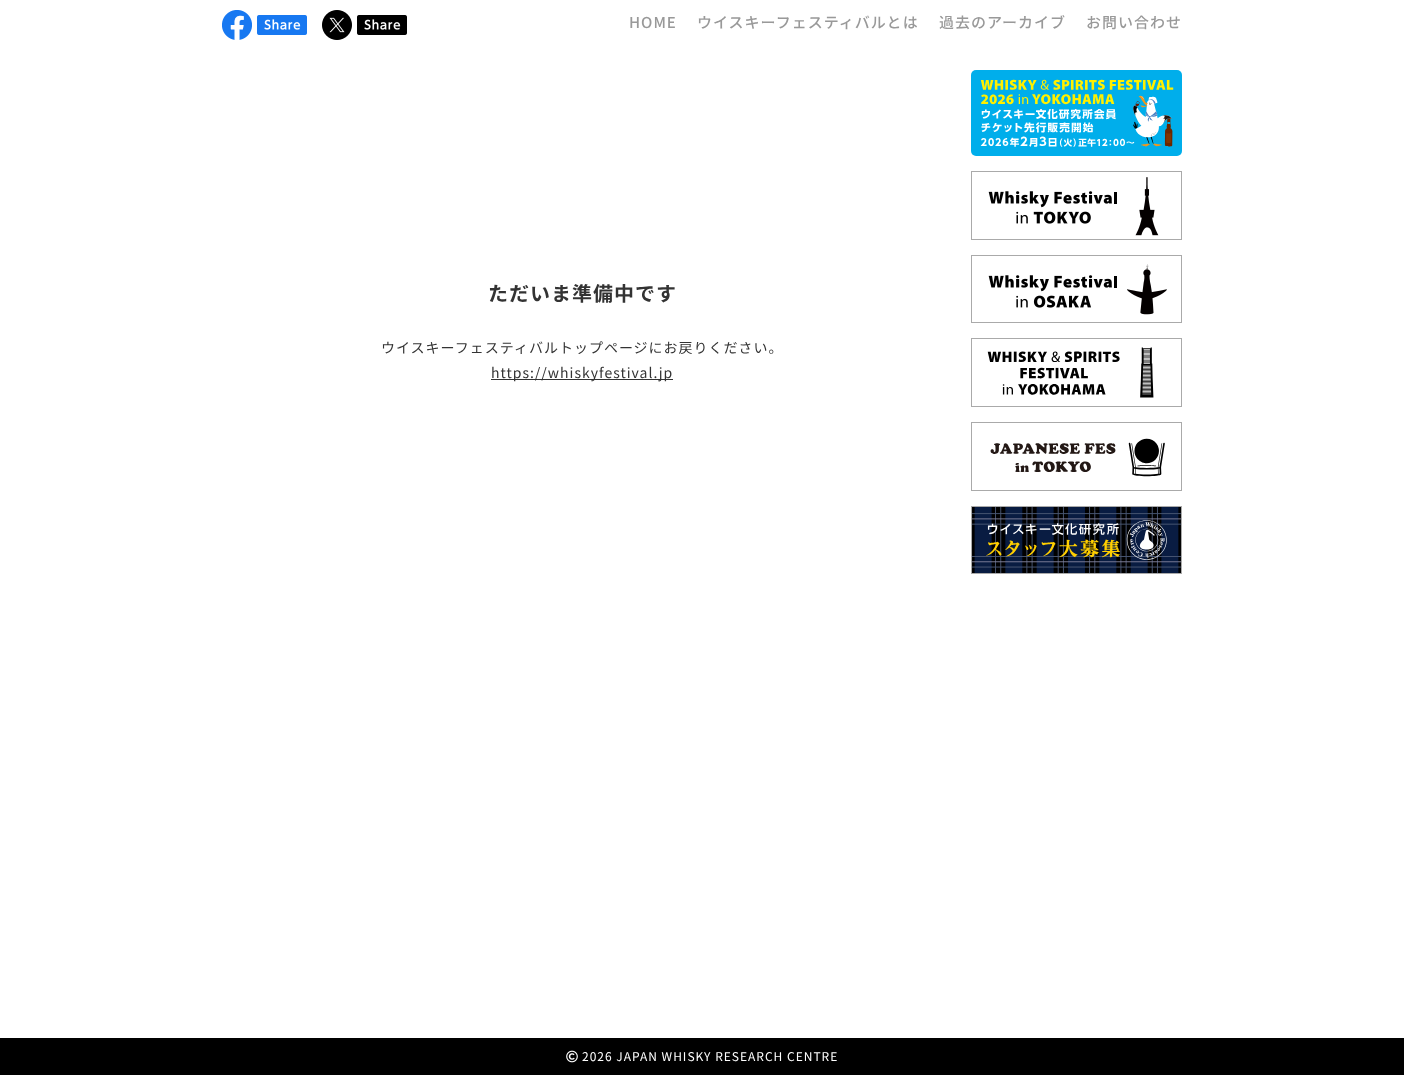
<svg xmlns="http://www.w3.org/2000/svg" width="1404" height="1075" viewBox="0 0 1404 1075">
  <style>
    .t1 { font: 500 15px Noto Sans JP; letter-spacing: 1px; fill: #999; }
    .t2 { font: bold 20px Noto Sans JP; letter-spacing: 1px; fill: #333; }
    .t3 { font: 14px Noto Sans JP; letter-spacing: 1px; fill: #333; }
    .t4 { font: 12px Noto Sans JP; letter-spacing: 1px; fill: #fff; }
  </style>
  <rect width="100%" height="100%" fill="#fff"/>
  <image x="222" y="10" width="30" height="30" href="images/1.png"/>
  <image x="257" y="15" width="50" height="20" href="images/2.png"/>
  <image x="322" y="10" width="30" height="30" href="images/3.png"/>
  <image x="357" y="15" width="50" height="20" href="images/4.png"/>
  <text x="629" y="28" class="t1">HOME</text>
  <text x="697" y="28" class="t1">ウイスキーフェスティバルとは</text>
  <text x="939" y="28" class="t1">過去のアーカイブ</text>
  <text x="1086" y="28" class="t1">お問い合わせ</text>
  <text x="488" y="301" class="t2">ただいま準備中です</text>
  <text x="381" y="353" class="t3">ウイスキーフェスティバルトップページにお戻りください。</text>
  <rect x="491" y="379" width="182" height="1" fill="#333"/>
  <text x="491" y="378" class="t3">https://whiskyfestival.jp</text>
  <image x="971" y="70" width="211" height="86" href="images/5.png"/>
  <rect x="971.5" y="171.5" width="210" height="68" fill="none" stroke="#aaa"/>
  <image x="988" y="177" width="171" height="59" href="images/6.png"/>
  <rect x="971.5" y="255.5" width="210" height="67" fill="none" stroke="#aaa"/>
  <image x="988" y="264" width="179" height="51" href="images/7.png"/>
  <rect x="971.5" y="338.5" width="210" height="68" fill="none" stroke="#aaa"/>
  <image x="987" y="347" width="167" height="51" href="images/8.png"/>
  <rect x="971.5" y="422.5" width="210" height="68" fill="none" stroke="#aaa"/>
  <image x="990" y="438" width="175" height="39" href="images/9.png"/>
  <rect x="971.5" y="506.5" width="210" height="67" fill="none" stroke="#aaa"/>
  <image x="972" y="507" width="209" height="66" href="images/10.png"/>
  <rect x="0" y="1038" width="1404" height="37" fill="#000"/>
  <image x="566" y="1050" width="12" height="13" href="images/11.png"/>
  <text x="582" y="1061" class="t4">2026 JAPAN WHISKY RESEARCH CENTRE</text>
</svg>
